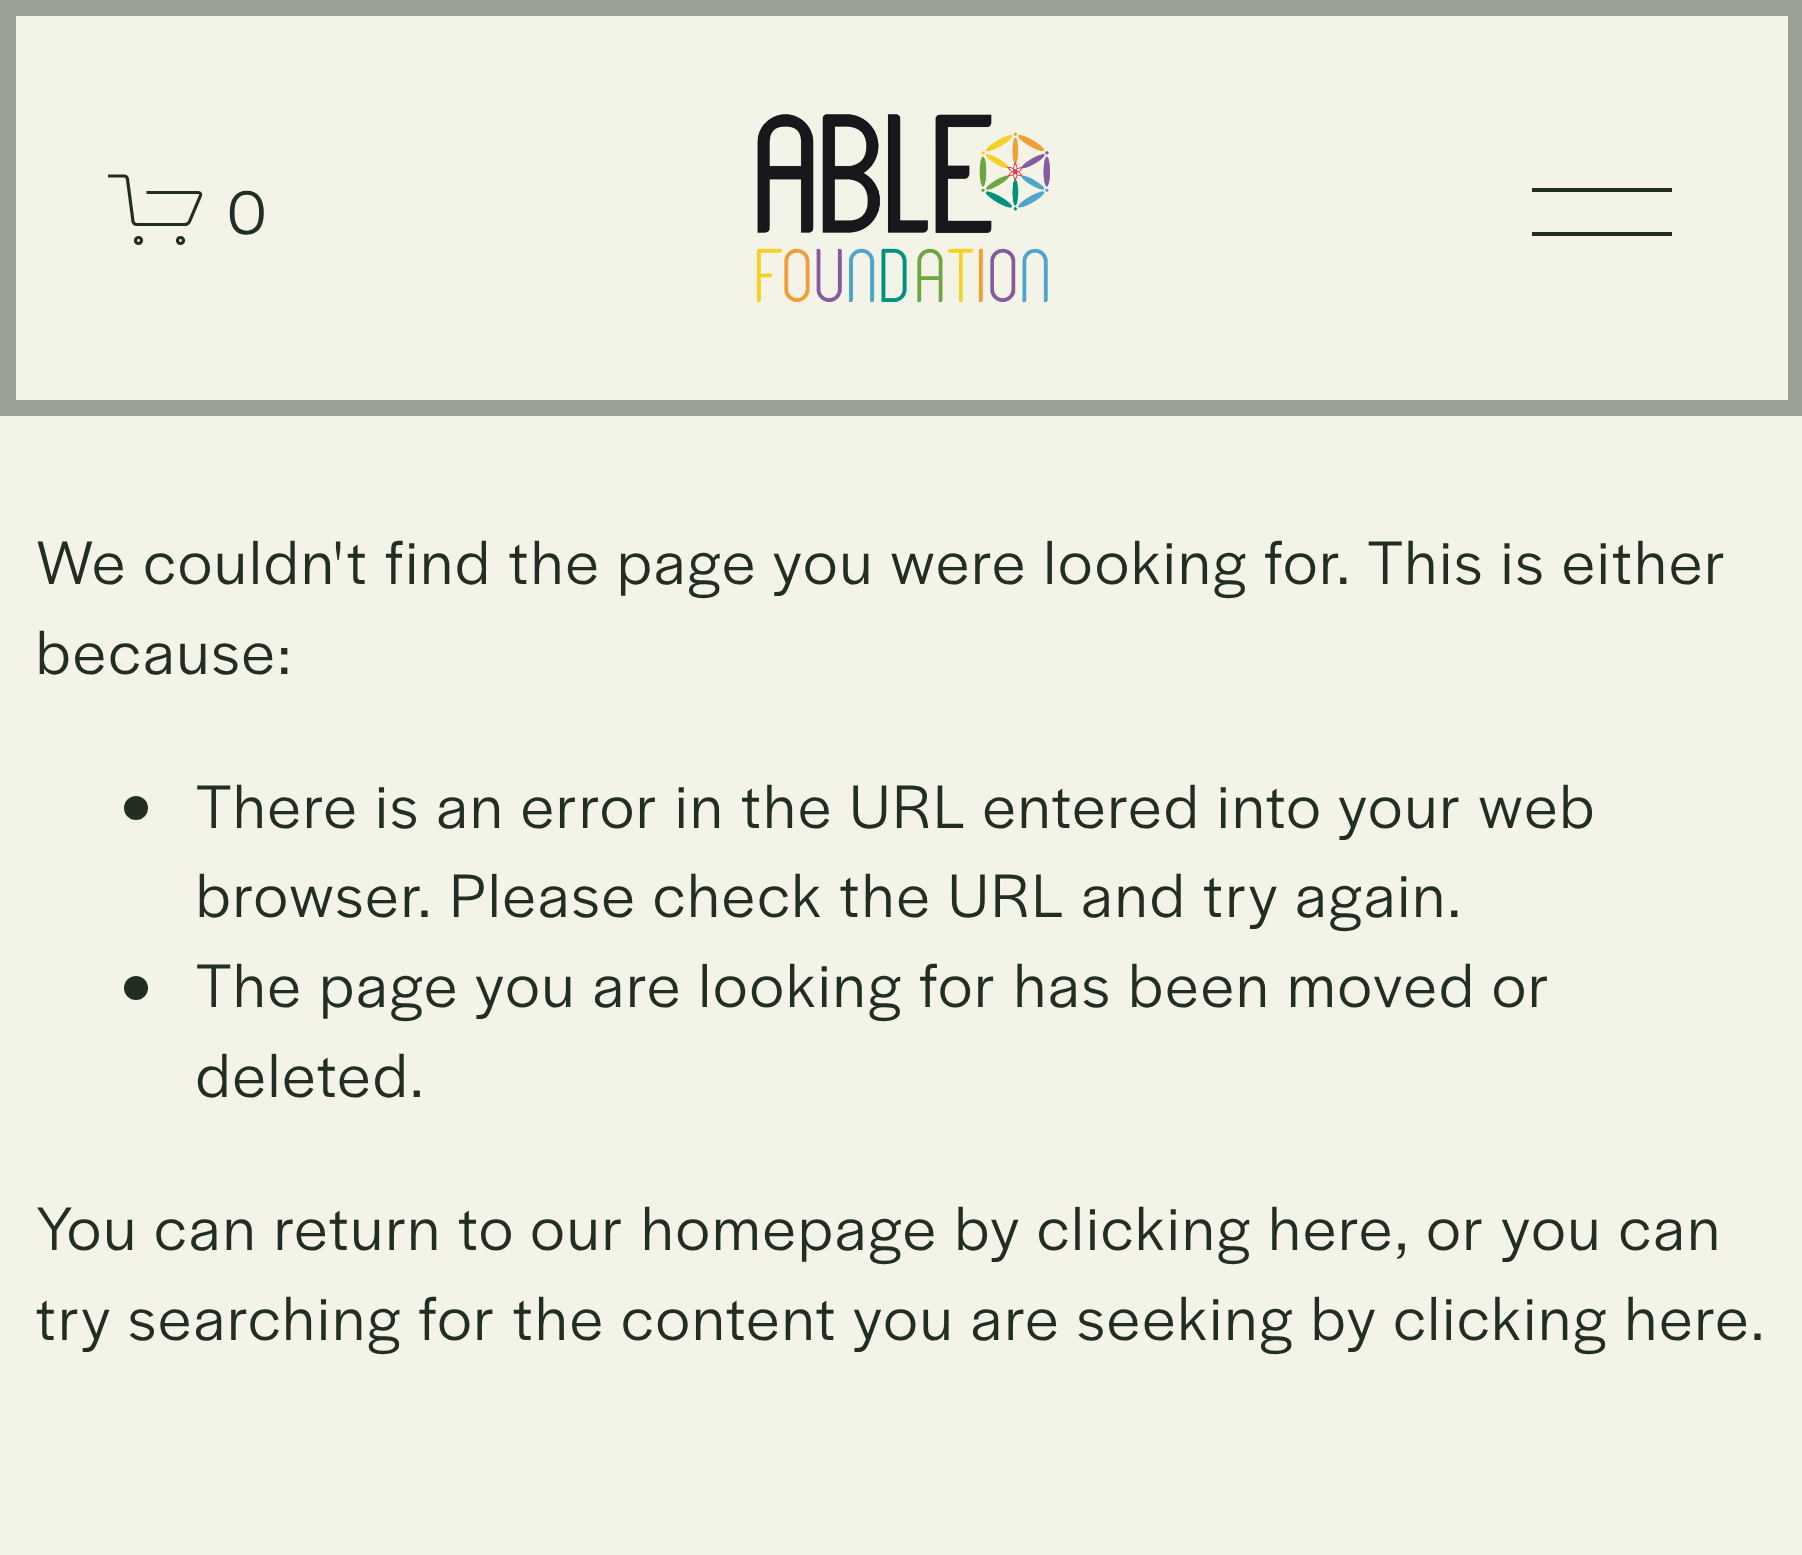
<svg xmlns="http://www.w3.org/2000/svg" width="1802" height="1555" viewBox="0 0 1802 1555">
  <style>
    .t1 { font: 64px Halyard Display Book; letter-spacing: 3.2px; fill: #212e21; }
  </style>
  <rect width="100%" height="100%" fill="#f4f3e8"/>
  <rect x="8" y="8" width="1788" height="400" fill="none" stroke="#9ba094" stroke-width="16"/>
  <circle cx="180.5" cy="240.5" r="3" fill="none" stroke="#212e21" stroke-width="3.2"/>
  <circle cx="138.5" cy="240.5" r="3" fill="none" stroke="#212e21" stroke-width="3.2"/>
  <path d="M108 176H124C126 176 127.5 177.5 127.5 179.5L133 221.5C133.5 223 135 224.5 136.5 224.5H185C186.5 224.5 189 223 189.5 221.5L200.5 195.5C201 194 200 192.5 198.5 192.5H146.5" fill="none" stroke="#212e21" stroke-width="3.2"/>
  <text x="227" y="234" class="t1">0</text>
  <image x="756" y="114" width="295" height="189" href="images/1.png"/>
  <rect x="1532" y="188" width="140" height="4" fill="#212e21"/>
  <rect x="1532" y="232" width="140" height="4" fill="#212e21"/>
  <text x="36" y="584" class="t1">We couldn't find the page you were looking for. This is either</text>
  <text x="36" y="674" class="t1">because:</text>
  <circle cx="136" cy="808" r="12" fill="#212e21"/>
  <text x="196" y="828" class="t1">There is an error in the URL entered into your web</text>
  <text x="196" y="917" class="t1">browser. Please check the URL and try again.</text>
  <circle cx="136" cy="988" r="12" fill="#212e21"/>
  <text x="196" y="1007" class="t1">The page you are looking for has been moved or</text>
  <text x="196" y="1097" class="t1">deleted.</text>
  <text x="36" y="1250" class="t1">You can return to our homepage by clicking here</text>
  <text x="1395" y="1250" class="t1">, or you can</text>
  <text x="36" y="1340" class="t1">try searching for the content you are seeking by clicking here</text>
  <text x="1751" y="1340" class="t1">.</text>
</svg>
